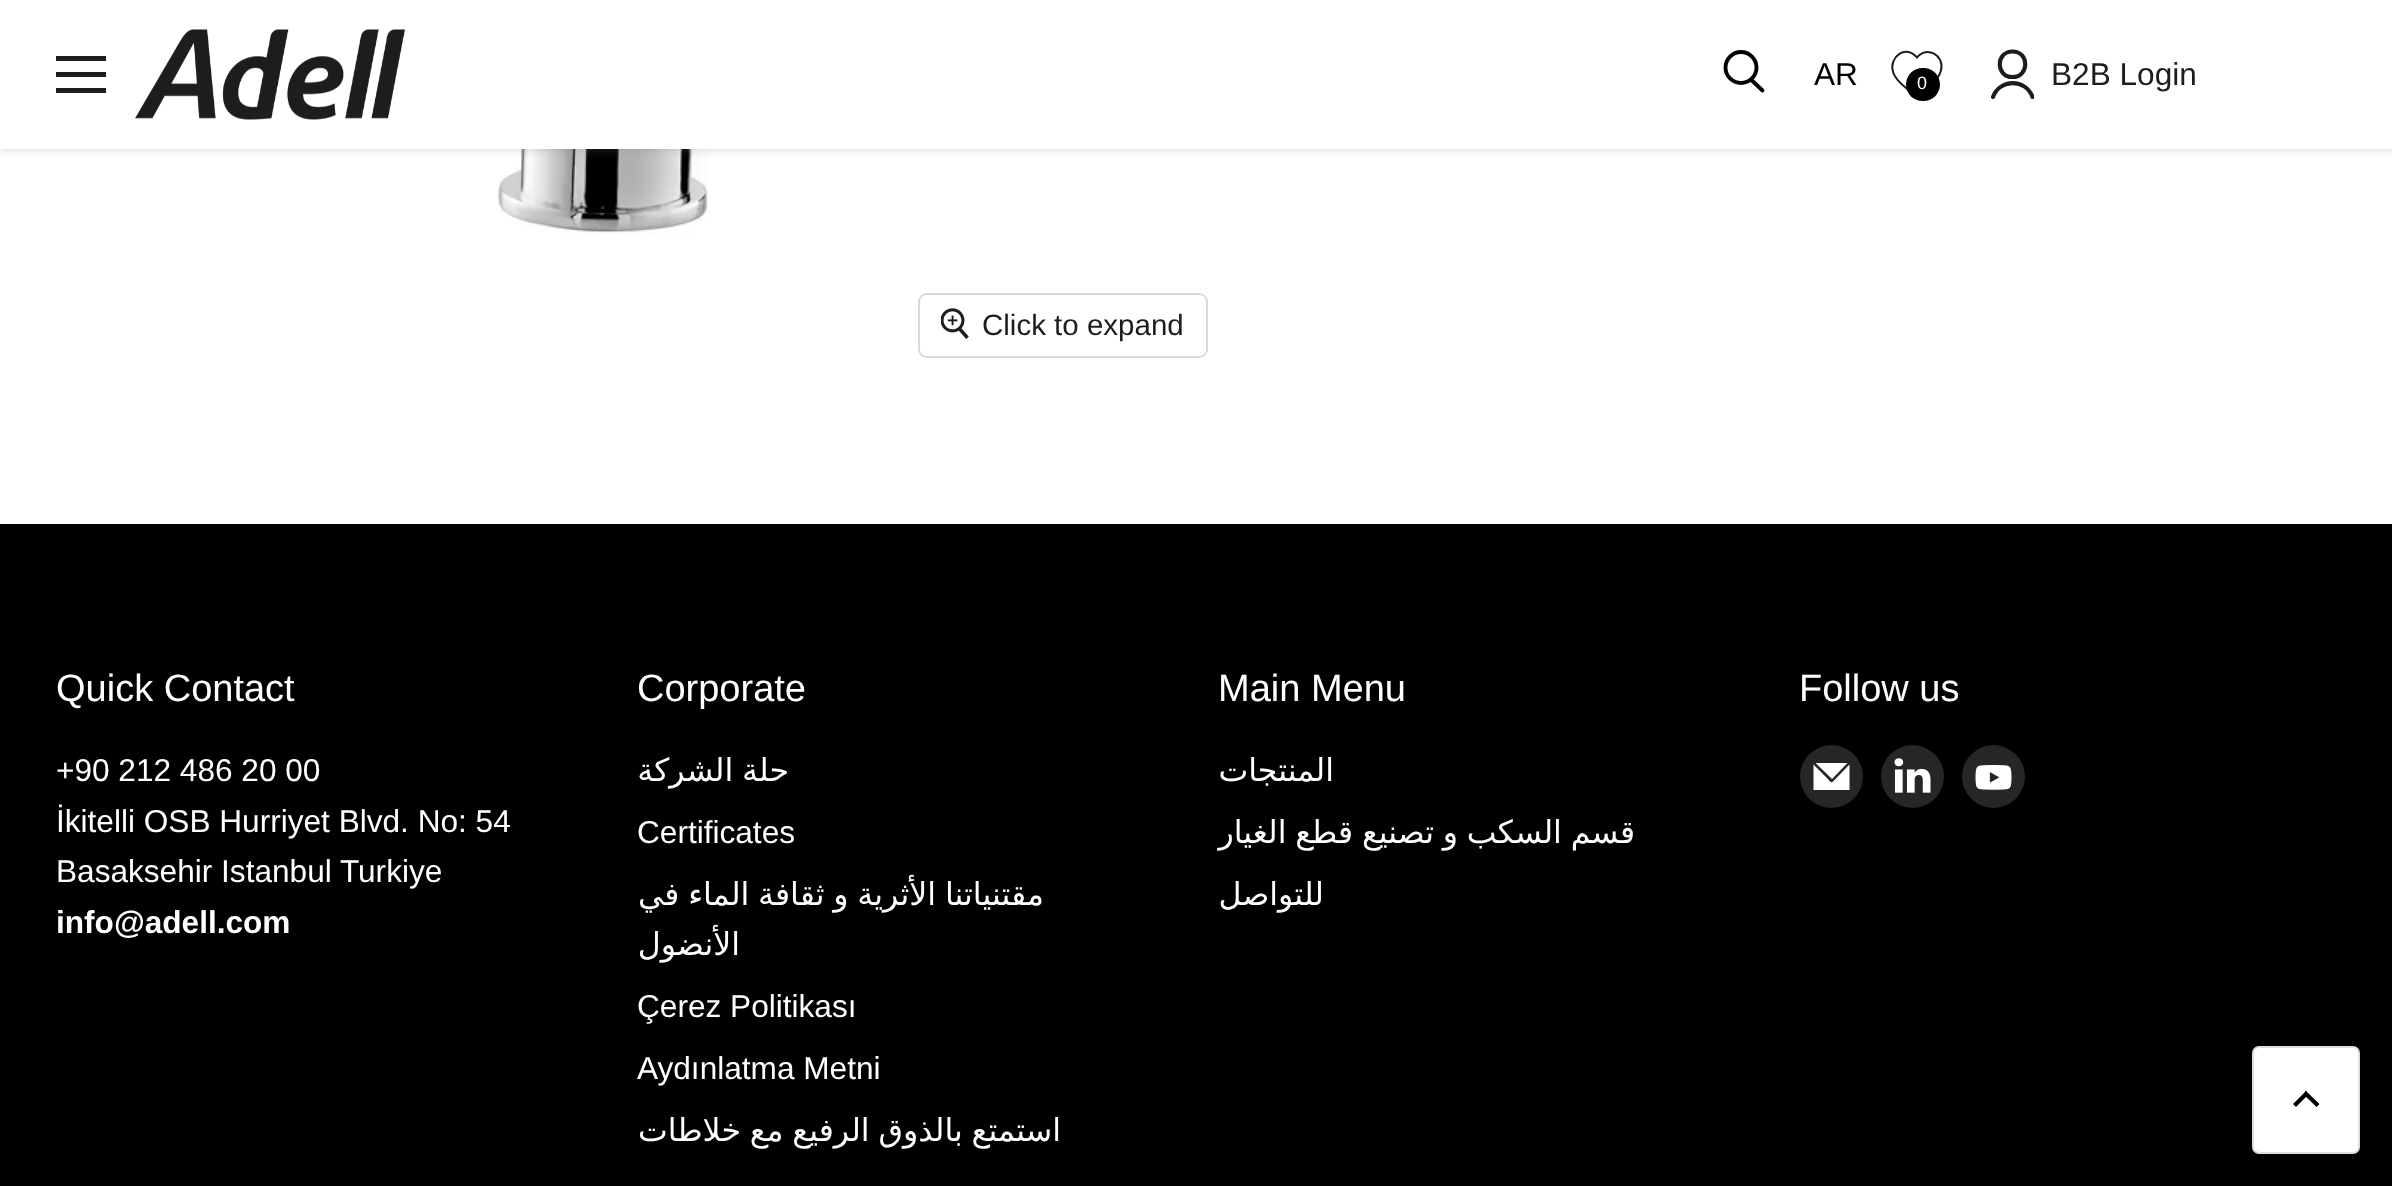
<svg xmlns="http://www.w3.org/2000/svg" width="2392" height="1186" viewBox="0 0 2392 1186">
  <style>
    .t1 { font: 31.6px Liberation Sans; fill: #000; }
    .t2 { font: 18px Liberation Sans; fill: #fff; }
    .t3 { font: 31.6px Liberation Sans; fill: #1d1d1d; }
    .t4 { font: 29.5px Liberation Sans; fill: #1d1d1d; }
    .t5 { font: 38px Liberation Sans; fill: #fff; }
    .t6 { font: 31.6px Liberation Sans; fill: #fff; }
    .t7 { font: bold 31.6px Liberation Sans; fill: #fff; }
    .t8 { font: 31.6px DejaVu Sans; direction: rtl; fill: #fff; }
  </style>
  <defs>
    <clipPath id="clip1"><rect x="1989" y="47" width="45" height="54"/></clipPath>
  </defs>
  <rect width="100%" height="100%" fill="#fff"/>
  <image x="497" y="149" width="211" height="86" href="images/2.png"/>
  <rect x="0" y="2" width="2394" height="149" fill="#80808040" filter="blur(4.5px)"/>
  <rect x="0" y="0" width="2392" height="149" fill="#fff"/>
  <rect x="56" y="56" width="50" height="5" fill="#1d1d1d"/>
  <rect x="56" y="72" width="50" height="5" fill="#1d1d1d"/>
  <rect x="56" y="88" width="50" height="5" fill="#1d1d1d"/>
  <image x="135" y="29" width="270" height="91" href="images/1.png"/>
  <path d="M1762.5 90.5L1751.5 80" fill="none" stroke="#000" stroke-width="3.9" stroke-linecap="round"/>
  <circle cx="1741" cy="67.5" r="15.5" fill="none" stroke="#000" stroke-width="3.9"/>
  <text x="1814" y="85" class="t1">AR</text>
  <path d="M1917 95C1914 95 1908 90 1906 88C1901 84 1895 78.5 1893 72C1888.5 56.5 1906.5 44 1917 57.5C1926.5 45 1945 55.5 1941 70.5C1939 78 1933.5 83.5 1928 88C1926.5 89 1920 95 1917 95Z" fill="none" stroke="#1d1d1d" stroke-width="2"/>
  <rect x="1906" y="68" width="34" height="33" rx="16.5" fill="#000"/>
  <text x="1917" y="89" class="t2">0</text>
  <path d="M2012.5 77C2029.5 77 2029.5 51.5 2012.5 51.5C1995.5 51.5 1995.5 77 2012.5 77Z" fill="none" stroke="#1d1d1d" stroke-width="4.1" stroke-linecap="round" stroke-linejoin="round"/>
  <g clip-path="url(#clip1)">
    <path d="M2032.5 97C2026 78.5 1999.5 78.5 1993 97" fill="none" stroke="#1d1d1d" stroke-width="4.1" stroke-linecap="round" stroke-linejoin="round"/>
  </g>
  <text x="2051" y="85" class="t3">B2B Login</text>
  <rect x="919" y="294" width="288" height="63" rx="8" fill="none" stroke="#d9d9d9" stroke-width="2"/>
  <rect x="920" y="295" width="286" height="61" rx="7" fill="#ffffffe6"/>
  <image x="941" y="308" width="28" height="31" href="images/3.png"/>
  <text x="982" y="335" class="t4">Click to expand</text>
  <rect x="0" y="524" width="2392" height="662" fill="#000"/>
  <text x="56" y="701" class="t5">Quick Contact</text>
  <text x="56" y="781" class="t6">+90 212 486 20 00</text>
  <text x="56" y="832" class="t6">İkitelli OSB Hurriyet Blvd. No: 54</text>
  <text x="56" y="882" class="t6">Basaksehir Istanbul Turkiye</text>
  <text x="56" y="933" class="t7">info@adell.com</text>
  <text x="637" y="701" class="t5">Corporate</text>
  <text x="789" y="781" word-spacing="-1.25" class="t8">حلة الشركة</text>
  <text x="637" y="843" class="t6">Certificates</text>
  <text x="1044" y="905" word-spacing="-1.25" class="t8">مقتنياتنا الأثرية و ثقافة الماء في</text>
  <text x="740" y="955" class="t8">الأنضول</text>
  <text x="637" y="1017" class="t6">Çerez Politikası</text>
  <text x="637" y="1079" class="t6">Aydınlatma Metni</text>
  <text x="1061" y="1141" word-spacing="-1.25" class="t8">استمتع بالذوق الرفيع مع خلاطات</text>
  <text x="1218" y="701" class="t5">Main Menu</text>
  <text x="1334" y="781" class="t8">المنتجات</text>
  <text x="1635" y="843" word-spacing="-1.25" class="t8">قسم السكب و تصنيع قطع الغيار</text>
  <text x="1324" y="905" class="t8">للتواصل</text>
  <text x="1799" y="701" class="t5">Follow us</text>
  <circle cx="1831.5" cy="776.5" r="31.5" fill="#262626"/>
  <path d="M1832.5 782C1831 783.5 1828 779 1828 779L1813.5 764.5V790H1849.5V764.5Z" fill="#fff"/>
  <path d="M1847.5 763H1815.5L1832 779Z" fill="#fff"/>
  <circle cx="1912.5" cy="776.5" r="31.5" fill="#262626"/>
  <image x="1894" y="758" width="37" height="35" href="images/4.png"/>
  <circle cx="1993.5" cy="776.5" r="31.5" fill="#262626"/>
  <image x="1975" y="765" width="37" height="25" href="images/5.png"/>
  <rect x="2253" y="1047" width="106" height="106" rx="6" fill="#fff" stroke="#ddd" stroke-width="2"/>
  <path d="M2306 1094L2296 1104M2306 1094L2316.5 1104" fill="none" stroke="#000" stroke-width="4.2" stroke-linecap="square"/>
</svg>
